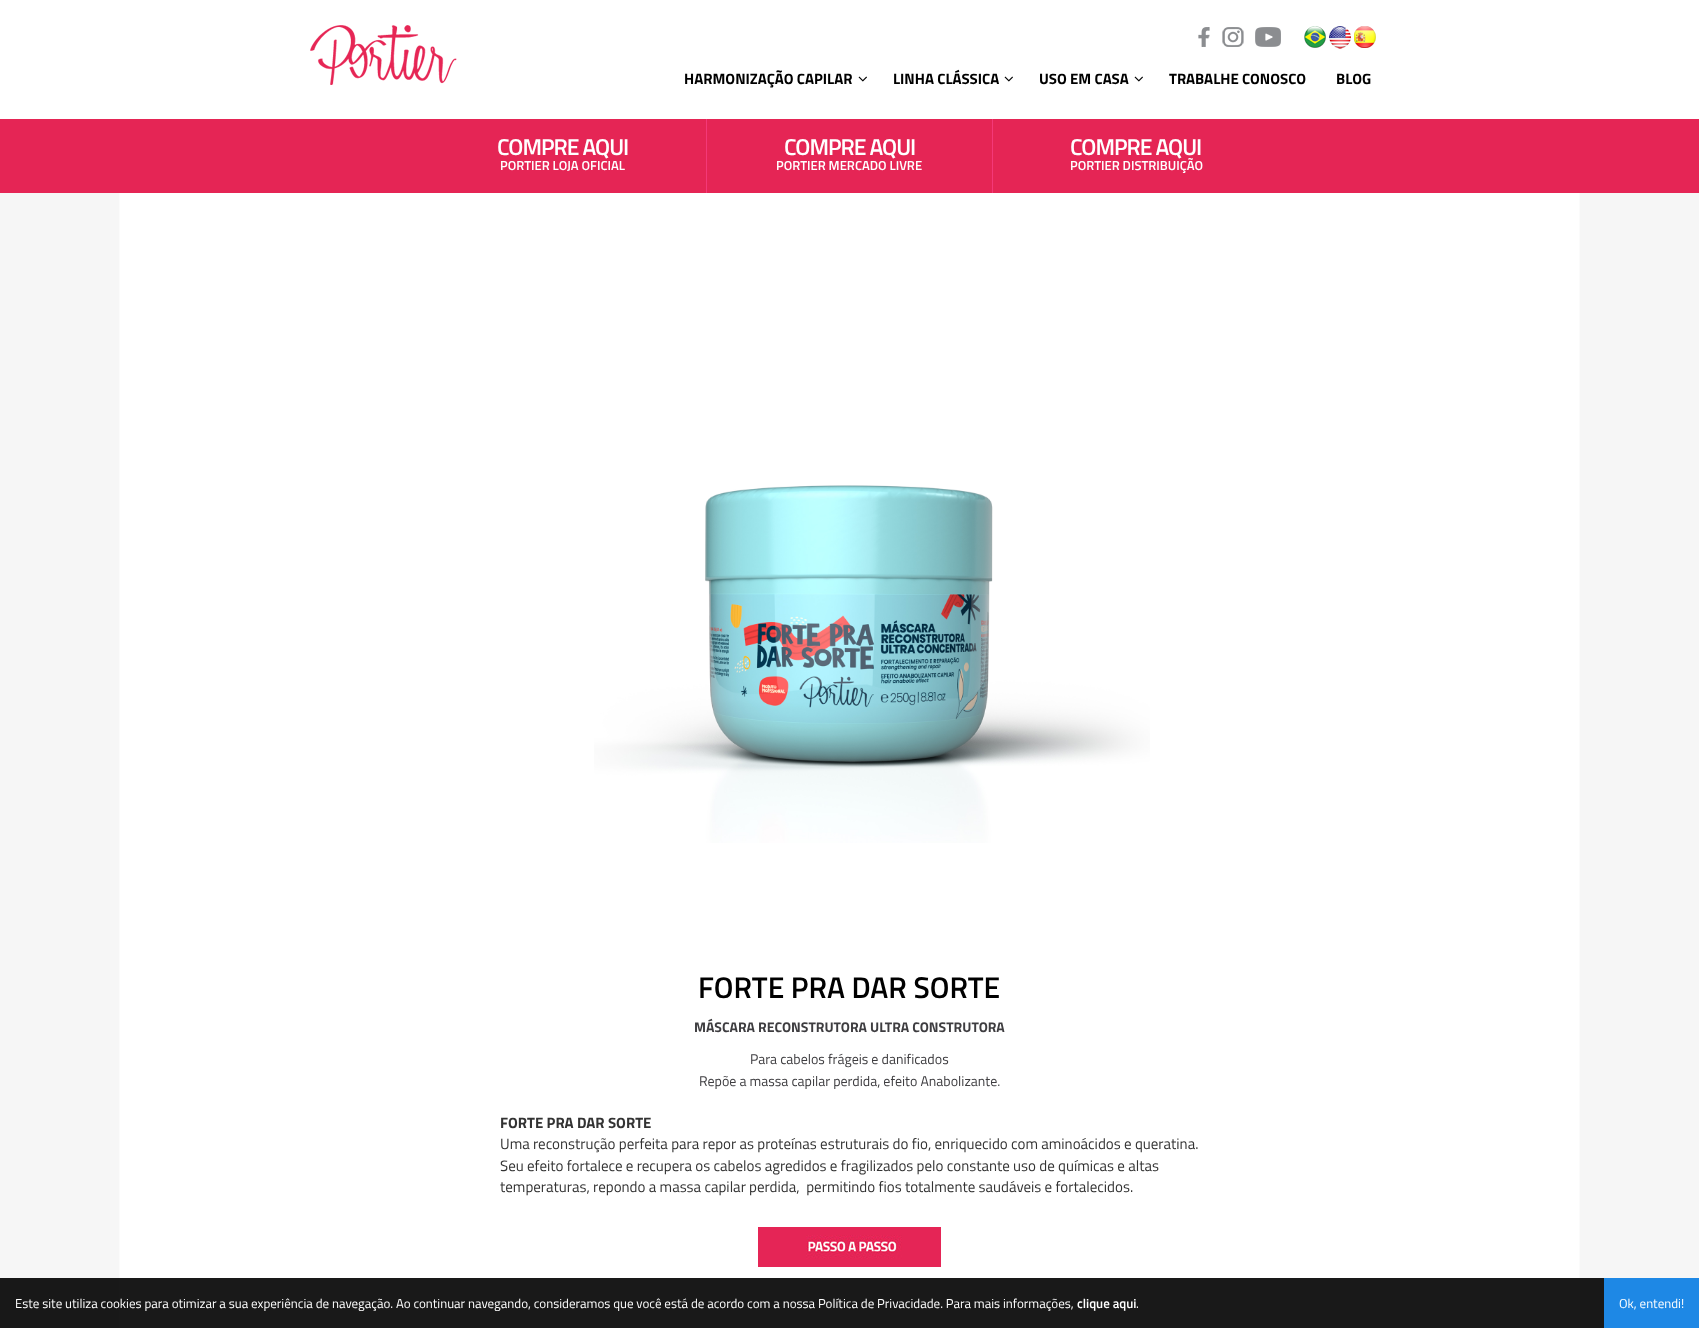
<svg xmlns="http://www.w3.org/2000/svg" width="1699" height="1328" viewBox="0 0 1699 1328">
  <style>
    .t1 { font: bold 15px Titillium Web; fill: #000; }
    .t2 { font: 600 23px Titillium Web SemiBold; letter-spacing: -1px; fill: #fff; }
    .t3 { font: 600 13px Titillium Web SemiBold; fill: #fff; }
    .t4 { font: 600 30px Titillium Web SemiBold; fill: #000; }
    .t5 { font: bold 14px Titillium Web; fill: #3e3d40; }
    .t6 { font: 14px Titillium Web; fill: #3e3d40; }
    .t7 { font: bold 15px Titillium Web; fill: #333; }
    .t8 { font: 15px Titillium Web; fill: #333; }
    .t9 { font: 13px Titillium Web; fill: #fff; }
  </style>
  <rect width="100%" height="100%" fill="#fff"/>
  <image x="0" y="193" width="1699" height="1135" href="images/1.png"/>
  <image x="310" y="25" width="147" height="60" href="images/2.png"/>
  <image x="1198" y="27" width="12" height="20" href="images/3.png"/>
  <image x="1222" y="27" width="22" height="20" href="images/4.png"/>
  <image x="1255" y="27" width="26" height="20" href="images/5.png"/>
  <image x="1304" y="26" width="22" height="22" href="images/6.png"/>
  <image x="1329" y="26" width="22" height="23" href="images/7.png"/>
  <image x="1354" y="26" width="22" height="22" href="images/8.png"/>
  <text x="684" y="84" class="t1">HARMONIZAÇÃO CAPILAR</text>
  <image x="858" y="76" width="9" height="6" href="images/9.png"/>
  <text x="893" y="84" class="t1">LINHA CLÁSSICA</text>
  <image x="1004" y="76" width="9" height="6" href="images/9.png"/>
  <text x="1039" y="84" class="t1">USO EM CASA</text>
  <image x="1134" y="76" width="9" height="6" href="images/9.png"/>
  <text x="1169" y="84" class="t1">TRABALHE CONOSCO</text>
  <text x="1336" y="84" class="t1">BLOG</text>
  <rect x="0" y="119" width="1699" height="74" fill="#e52555"/>
  <text x="497" y="155" class="t2">COMPRE AQUI</text>
  <text x="500" y="170" class="t3">PORTIER LOJA OFICIAL</text>
  <rect x="992" y="119" width="1" height="74" fill="#f43878"/>
  <rect x="706" y="119" width="1" height="74" fill="#f43878"/>
  <text x="784" y="155" class="t2">COMPRE AQUI</text>
  <text x="776" y="170" class="t3">PORTIER MERCADO LIVRE</text>
  <text x="1070" y="155" class="t2">COMPRE AQUI</text>
  <text x="1070" y="170" class="t3">PORTIER DISTRIBUIÇÃO</text>
  <image x="594" y="485" width="556" height="358" href="images/10.png"/>
  <text x="698" y="998" class="t4">FORTE PRA DAR SORTE</text>
  <text x="694" y="1032" class="t5">MÁSCARA RECONSTRUTORA ULTRA CONSTRUTORA</text>
  <text x="750" y="1064" class="t6">Para cabelos frágeis e danificados</text>
  <text x="699" y="1086" class="t6">Repõe a massa capilar perdida, efeito Anabolizante.</text>
  <text x="500" y="1128" class="t7">FORTE PRA DAR SORTE</text>
  <text x="500" y="1149" class="t8">Uma reconstrução perfeita para repor as proteínas estruturais do fio, enriquecido com aminoácidos e queratina.</text>
  <text x="500" y="1171" class="t8">Seu efeito fortalece e recupera os cabelos agredidos e fragilizados pelo constante uso de químicas e altas</text>
  <text x="500" y="1192" class="t8" xml:space="preserve">temperaturas, repondo a massa capilar perdida,  permitindo fios totalmente saudáveis e fortalecidos.</text>
  <image x="758" y="1227" width="183" height="40" href="images/11.png"/>
  <rect x="0" y="1278" width="1604" height="50" fill="#000000e6"/>
  <text x="15" y="1308" class="t9">Este site utiliza cookies para otimizar a sua experiência de navegação. Ao continuar navegando, consideramos que você está de acordo com a nossa Política de Privacidade. Para mais informações,</text>
  <text x="1077" y="1308" class="t3">clique aqui</text>
  <text x="1136" y="1308" class="t9">.</text>
  <rect x="1604" y="1278" width="95" height="50" fill="#1e88e5"/>
  <text x="1619" y="1308" class="t9">Ok, entendi!</text>
</svg>
